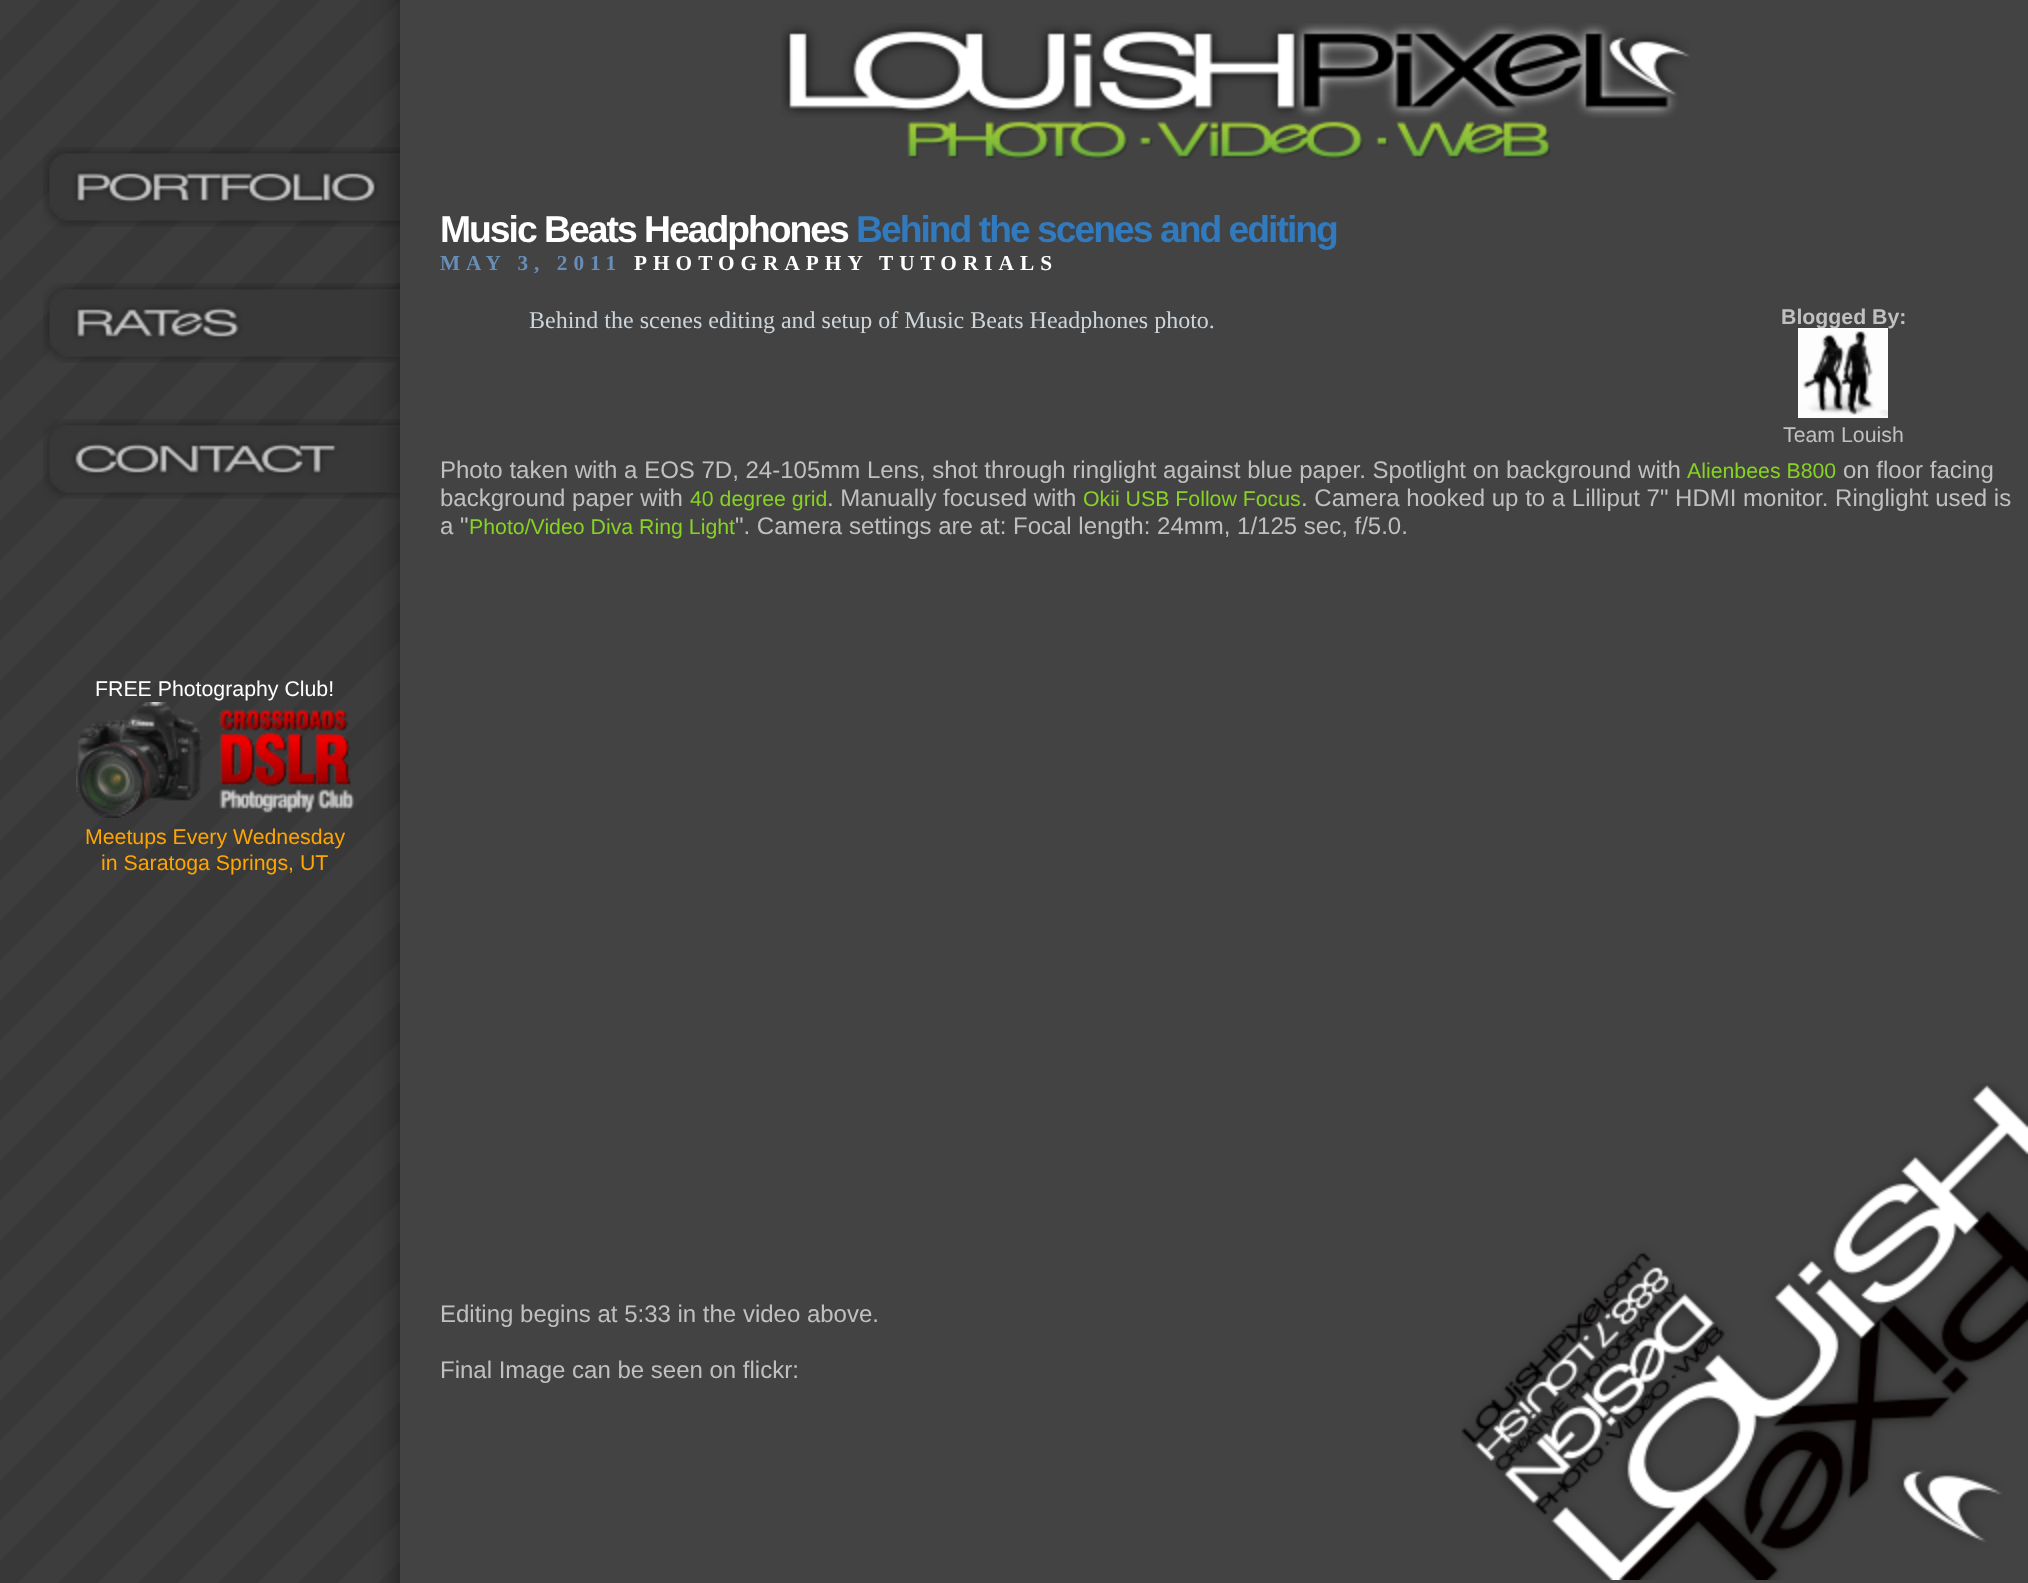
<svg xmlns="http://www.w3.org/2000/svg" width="2028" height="1583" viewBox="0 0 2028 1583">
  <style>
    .t1 { font: 21.3px Liberation Sans; fill: #fff; }
    .t2 { font: 21.3px Liberation Sans; fill: #ffa500; }
    .t3 { font: bold 37.3px Liberation Sans; letter-spacing: -2px; fill: #fff; }
    .t4 { font: bold 37.3px Liberation Sans; letter-spacing: -2px; fill: #327abe; }
    .t5 { font: bold 21.3px Liberation Serif; letter-spacing: 6px; fill: #688eb8; }
    .t6 { font: bold 21.3px Liberation Serif; letter-spacing: 6px; fill: #fff; }
    .t7 { font: 24px Liberation Serif; fill: #cdd5db; }
    .t8 { font: bold 21.3px Liberation Sans; fill: #c0c0c0; }
    .t9 { font: 21.3px Liberation Sans; fill: #c0c0c0; }
    .t10 { font: 24px Liberation Sans; fill: #c0c0c0; }
    .t11 { font: 21.3px Liberation Sans; fill: #87d323; }
  </style>
  <rect width="100%" height="100%" fill="#434343"/>
  <image x="0" y="0" width="400" height="1583" href="images/1.png"/>
  <image x="43" y="147" width="357" height="80" href="images/2.png"/>
  <image x="50" y="154" width="350" height="66" href="images/3.png"/>
  <image x="43" y="283" width="357" height="80" href="images/4.png"/>
  <image x="50" y="290" width="350" height="66" href="images/5.png"/>
  <image x="43" y="419" width="357" height="80" href="images/6.png"/>
  <image x="50" y="426" width="350" height="66" href="images/7.png"/>
  <text x="95" y="696" class="t1">FREE Photography Club!</text>
  <image x="76" y="702" width="278" height="116" href="images/8.png"/>
  <text x="85" y="844" class="t2">Meetups Every Wednesday</text>
  <text x="101" y="870" class="t2">in Saratoga Springs, UT</text>
  <image x="781" y="23" width="909" height="95" href="images/9.png"/>
  <image x="907" y="121" width="644" height="39" href="images/10.png"/>
  <text x="440" y="242" class="t3">Music Beats Headphones</text>
  <text x="856" y="242" class="t4">Behind the scenes and editing</text>
  <text x="440" y="270" class="t5">MAY 3, 2011</text>
  <text x="634" y="270" class="t6">PHOTOGRAPHY TUTORIALS</text>
  <text x="529" y="328" class="t7">Behind the scenes editing and setup of Music Beats Headphones photo.</text>
  <text x="1781" y="324" class="t8">Blogged By:</text>
  <image x="1798" y="328" width="90" height="90" href="images/11.png"/>
  <text x="1783" y="442" class="t9">Team Louish</text>
  <text x="440" y="478" class="t10">Photo taken with a EOS 7D, 24-105mm Lens, shot through ringlight against blue paper. Spotlight on background with</text>
  <text x="1687" y="478" class="t11">Alienbees B800</text>
  <text x="1843" y="478" class="t10">on floor facing</text>
  <text x="440" y="506" class="t10">background paper with</text>
  <text x="690" y="506" class="t11">40 degree grid</text>
  <text x="827" y="506" class="t10">. Manually focused with</text>
  <text x="1083" y="506" class="t11">Okii USB Follow Focus</text>
  <text x="1301" y="506" class="t10">. Camera hooked up to a Lilliput 7" HDMI monitor. Ringlight used is</text>
  <text x="440" y="534" class="t10">a "</text>
  <text x="469" y="534" class="t11">Photo/Video Diva Ring Light</text>
  <text x="735" y="534" class="t10">". Camera settings are at: Focal length: 24mm, 1/125 sec, f/5.0.</text>
  <text x="440" y="1322" class="t10">Editing begins at 5:33 in the video above.</text>
  <text x="440" y="1378" class="t10">Final Image can be seen on flickr:</text>
  <image x="1461" y="1083" width="567" height="497" href="images/12.png"/>
</svg>
